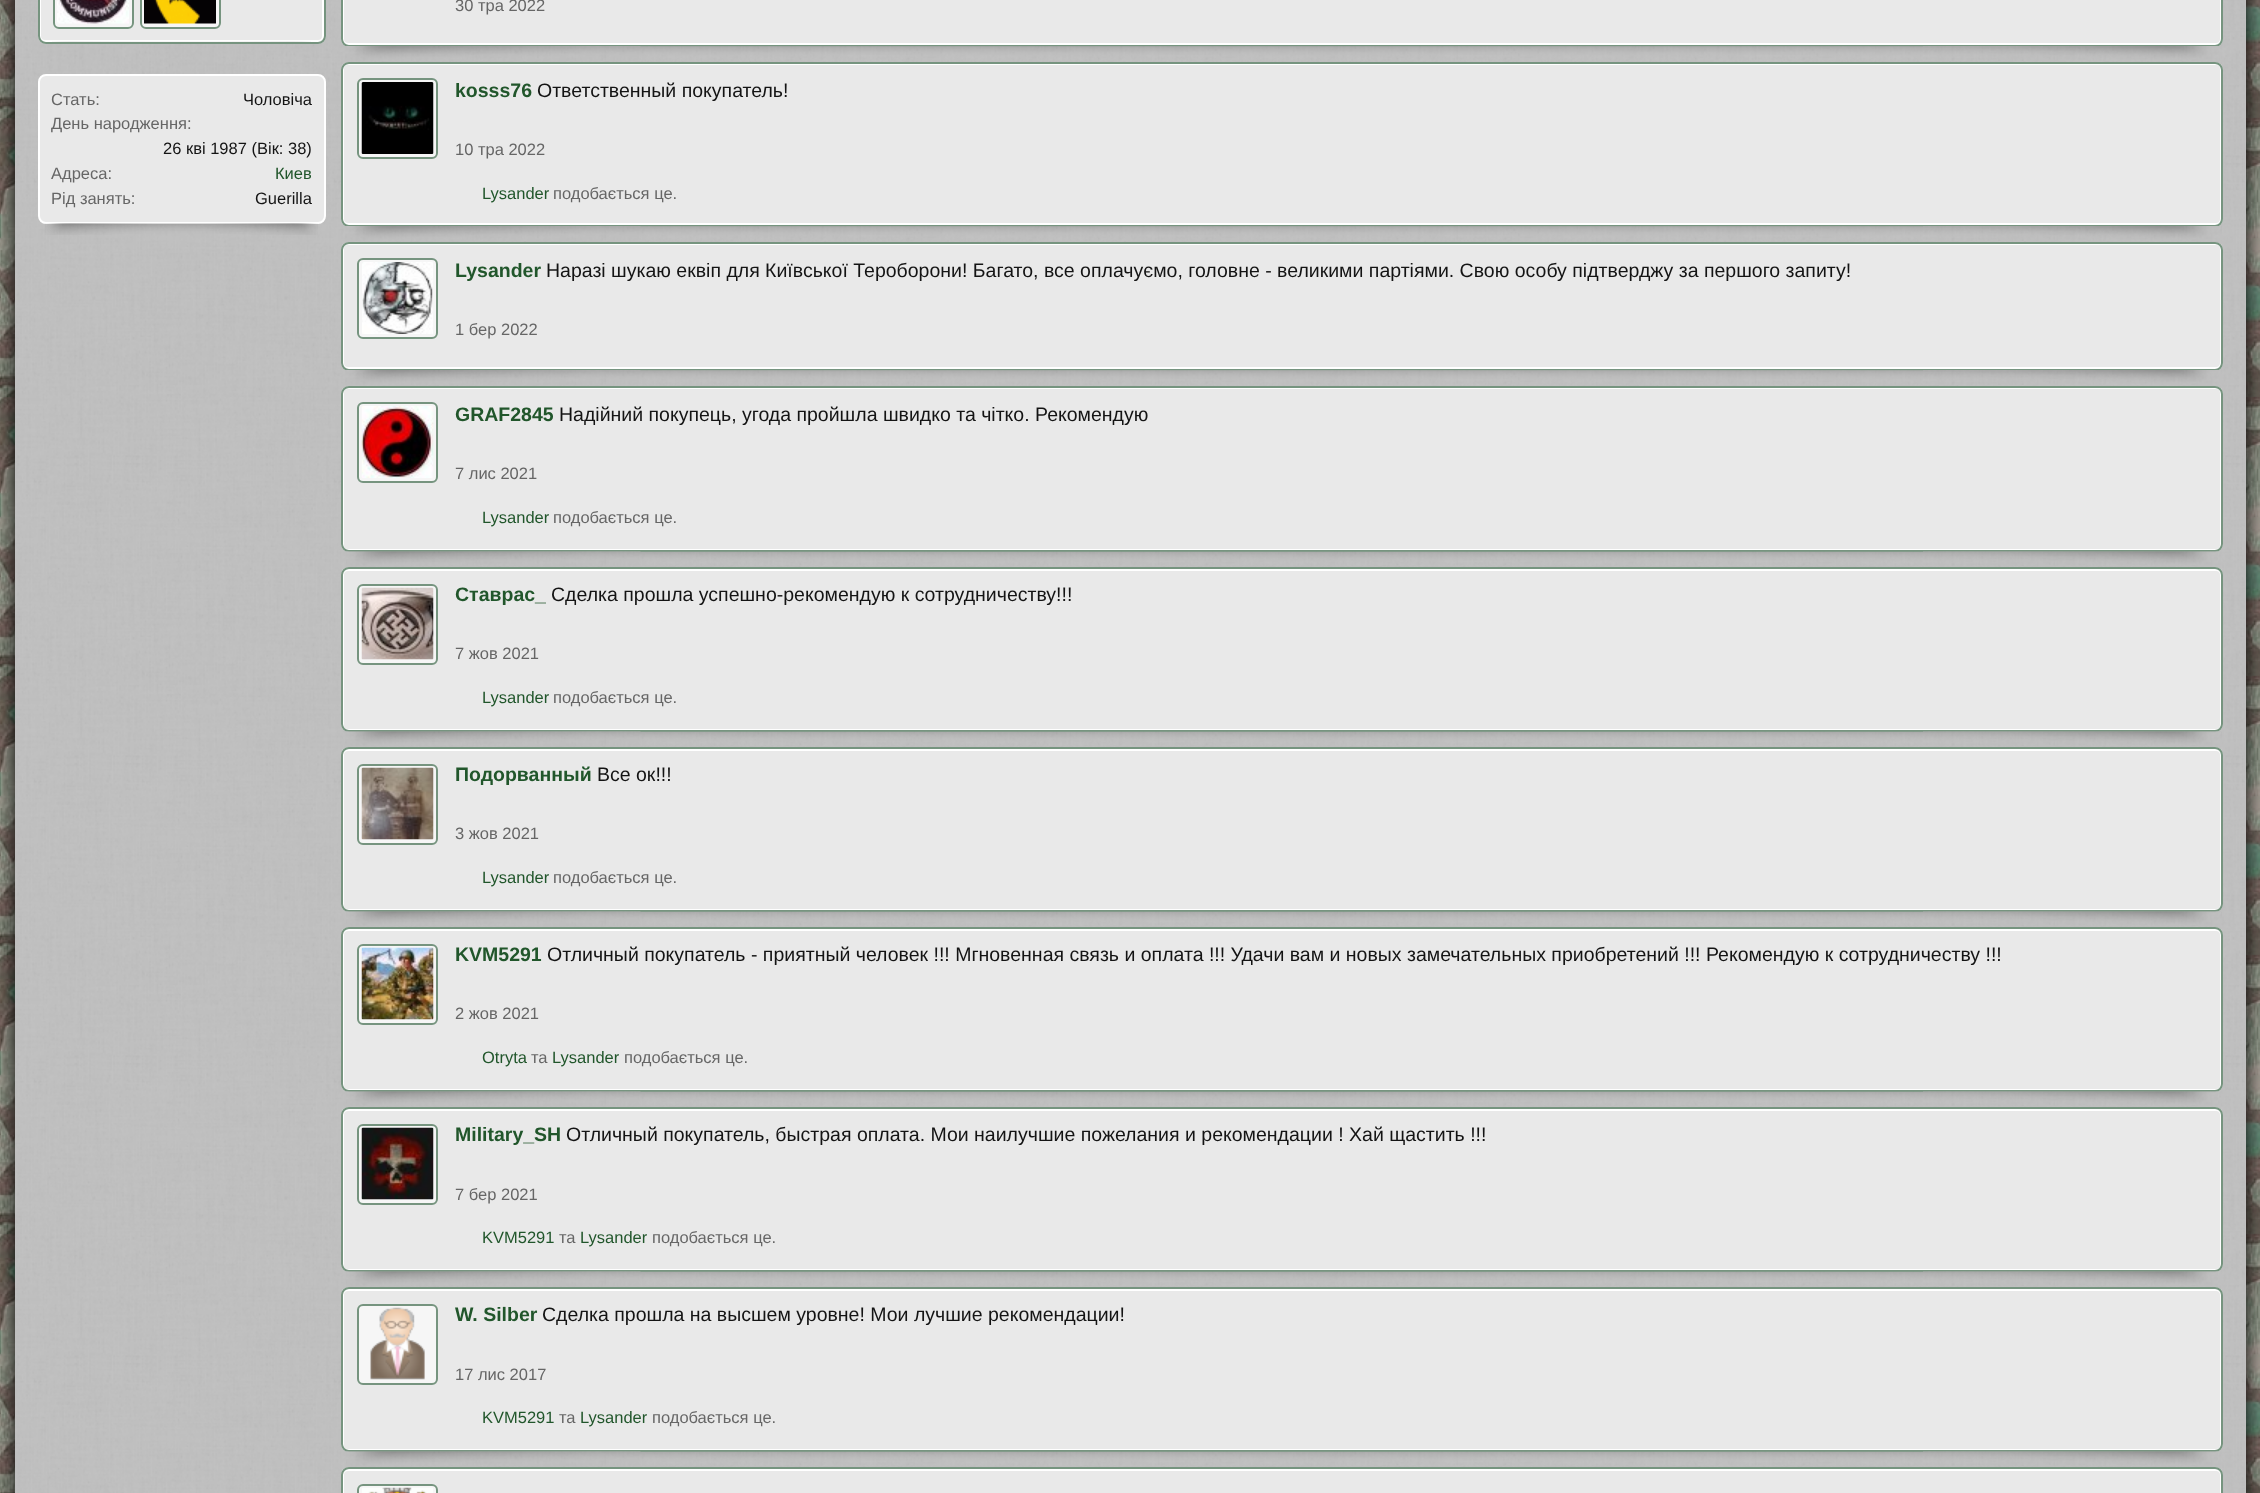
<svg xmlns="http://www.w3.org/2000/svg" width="2260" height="1493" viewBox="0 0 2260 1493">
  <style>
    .t1 { font: 16.5px Liberation Sans; fill: #666; }
    .t2 { font: 16.5px Liberation Sans; fill: #141414; }
    .t3 { font: 16.5px Liberation Sans; fill: #21562b; }
    .t4 { font: bold 19.5px Liberation Sans; fill: #21562b; }
    .t5 { font: 19.5px Liberation Sans; fill: #141414; }
  </style>
  <rect width="100%" height="100%" fill="#fff"/>
  <image x="0" y="0" width="2260" height="1493" href="images/1.png"/>
  <rect x="15" y="-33" width="2231" height="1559" fill="#000" filter="blur(11px)"/>
  <rect x="15" y="0" width="2231" height="1493" fill="#c0c0c0"/>
  <image x="15" y="0" width="2230" height="1493" href="images/2.png"/>
  <rect x="38" y="-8" width="288" height="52" rx="8" fill="#e9e9e9"/>
  <rect x="40" y="-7" width="283" height="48" rx="5" fill="none" stroke="#fff" stroke-width="2"/>
  <rect x="39" y="-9" width="286" height="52" rx="7" fill="none" stroke="#76947f" stroke-width="2"/>
  <rect x="53" y="-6" width="81" height="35" rx="6" fill="#f6f6f6"/>
  <image x="57" y="0" width="72" height="24" href="images/3.png"/>
  <rect x="54" y="-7" width="79" height="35" rx="5" fill="none" stroke="#76947f" stroke-width="2"/>
  <rect x="140" y="-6" width="81" height="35" rx="6" fill="#f6f6f6"/>
  <image x="144" y="0" width="72" height="24" href="images/4.png"/>
  <rect x="141" y="-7" width="79" height="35" rx="5" fill="none" stroke="#76947f" stroke-width="2"/>
  <image x="52" y="41" width="259" height="1" href="images/5.png"/>
  <rect x="39" y="75" width="286" height="148" rx="7" fill="#e9e9e9" stroke="#fff" stroke-width="2"/>
  <text x="51" y="105" class="t1">Стать:</text>
  <text x="243" y="105" class="t2">Чоловіча</text>
  <text x="51" y="129" class="t1">День народження:</text>
  <text x="163" y="154" class="t2">26 кві 1987 (Вік: 38)</text>
  <text x="51" y="179" class="t1">Адреса:</text>
  <text x="275" y="179" class="t3">Киев</text>
  <text x="51" y="204" class="t1">Рід занять:</text>
  <text x="255" y="204" class="t2">Guerilla</text>
  <image x="45" y="223" width="273" height="12" href="images/6.png"/>
  <rect x="341" y="-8" width="1882" height="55" rx="8" fill="#e9e9e9"/>
  <rect x="343" y="-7" width="1878" height="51" rx="5" fill="none" stroke="#fff" stroke-width="2"/>
  <rect x="342" y="-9" width="1880" height="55" rx="7" fill="none" stroke="#76947f" stroke-width="2"/>
  <text x="455" y="11" class="t1">30 тра 2022</text>
  <image x="345" y="46" width="1874" height="15" href="images/7.png"/>
  <rect x="341" y="62" width="1882" height="165" rx="8" fill="#e9e9e9"/>
  <rect x="343" y="64" width="1878" height="160" rx="5" fill="none" stroke="#fff" stroke-width="2"/>
  <rect x="342" y="63" width="1880" height="163" rx="7" fill="none" stroke="#76947f" stroke-width="2"/>
  <rect x="358" y="79" width="79" height="79" rx="5" fill="#f6f6f6" stroke="#76947f" stroke-width="2"/>
  <image x="361" y="82" width="73" height="72" href="images/8.png"/>
  <text x="455" y="97" class="t4">kosss76</text>
  <text x="537" y="97" class="t5">Ответственный покупатель!</text>
  <text x="455" y="155" class="t1">10 тра 2022</text>
  <text x="482" y="199" class="t3">Lysander</text>
  <text x="553" y="199" class="t1">подобається це.</text>
  <image x="344" y="226" width="1878" height="15" href="images/9.png"/>
  <rect x="341" y="242" width="1882" height="129" rx="8" fill="#e9e9e9"/>
  <rect x="343" y="244" width="1878" height="124" rx="5" fill="none" stroke="#fff" stroke-width="2"/>
  <rect x="342" y="243" width="1880" height="127" rx="7" fill="none" stroke="#76947f" stroke-width="2"/>
  <rect x="358" y="259" width="79" height="79" rx="5" fill="#f6f6f6" stroke="#76947f" stroke-width="2"/>
  <image x="362" y="262" width="71" height="72" href="images/10.png"/>
  <text x="455" y="277" class="t4">Lysander</text>
  <text x="546" y="277" class="t5">Наразі шукаю еквіп для Київської Тероборони! Багато, все оплачуємо, головне - великими партіями. Свою особу підтверджу за першого запиту!</text>
  <text x="455" y="335" class="t1">1 бер 2022</text>
  <image x="345" y="370" width="1874" height="15" href="images/11.png"/>
  <rect x="341" y="386" width="1882" height="166" rx="8" fill="#e9e9e9"/>
  <rect x="343" y="388" width="1878" height="162" rx="5" fill="none" stroke="#fff" stroke-width="2"/>
  <rect x="342" y="387" width="1880" height="164" rx="7" fill="none" stroke="#76947f" stroke-width="2"/>
  <rect x="358" y="403" width="79" height="79" rx="5" fill="#f6f6f6" stroke="#76947f" stroke-width="2"/>
  <image x="361" y="406" width="73" height="72" href="images/12.png"/>
  <text x="455" y="421" class="t4">GRAF2845</text>
  <text x="559" y="421" class="t5">Надійний покупець, угода пройшла швидко та чітко. Рекомендую</text>
  <text x="455" y="479" class="t1">7 лис 2021</text>
  <text x="482" y="523" class="t3">Lysander</text>
  <text x="553" y="523" class="t1">подобається це.</text>
  <image x="346" y="551" width="1872" height="15" href="images/13.png"/>
  <rect x="341" y="567" width="1882" height="165" rx="8" fill="#e9e9e9"/>
  <rect x="343" y="570" width="1878" height="160" rx="5" fill="none" stroke="#fff" stroke-width="2"/>
  <rect x="342" y="568" width="1880" height="163" rx="7" fill="none" stroke="#76947f" stroke-width="2"/>
  <rect x="358" y="585" width="79" height="79" rx="5" fill="#f6f6f6" stroke="#76947f" stroke-width="2"/>
  <image x="361" y="587" width="73" height="73" href="images/14.png"/>
  <text x="455" y="601" class="t4">Ставрас_</text>
  <text x="551" y="601" class="t5">Сделка прошла успешно-рекомендую к сотрудничеству!!!</text>
  <text x="455" y="659" class="t1">7 жов 2021</text>
  <text x="482" y="703" class="t3">Lysander</text>
  <text x="553" y="703" class="t1">подобається це.</text>
  <image x="343" y="731" width="1879" height="15" href="images/15.png"/>
  <rect x="341" y="747" width="1882" height="165" rx="8" fill="#e9e9e9"/>
  <rect x="343" y="750" width="1878" height="160" rx="5" fill="none" stroke="#fff" stroke-width="2"/>
  <rect x="342" y="748" width="1880" height="163" rx="7" fill="none" stroke="#76947f" stroke-width="2"/>
  <rect x="358" y="765" width="79" height="79" rx="5" fill="#f6f6f6" stroke="#76947f" stroke-width="2"/>
  <image x="361" y="767" width="73" height="73" href="images/16.png"/>
  <text x="455" y="781" class="t4">Подорванный</text>
  <text x="597" y="781" class="t5">Все ок!!!</text>
  <text x="455" y="839" class="t1">3 жов 2021</text>
  <text x="482" y="883" class="t3">Lysander</text>
  <text x="553" y="883" class="t1">подобається це.</text>
  <image x="346" y="911" width="1876" height="15" href="images/17.png"/>
  <rect x="341" y="927" width="1882" height="165" rx="8" fill="#e9e9e9"/>
  <rect x="343" y="930" width="1878" height="160" rx="5" fill="none" stroke="#fff" stroke-width="2"/>
  <rect x="342" y="928" width="1880" height="163" rx="7" fill="none" stroke="#76947f" stroke-width="2"/>
  <rect x="358" y="945" width="79" height="79" rx="5" fill="#f6f6f6" stroke="#76947f" stroke-width="2"/>
  <image x="361" y="947" width="73" height="73" href="images/18.png"/>
  <text x="455" y="961" class="t4">KVM5291</text>
  <text x="547" y="961" class="t5">Отличный покупатель - приятный человек !!! Мгновенная связь и оплата !!! Удачи вам и новых замечательных приобретений !!! Рекомендую к сотрудничеству !!!</text>
  <text x="455" y="1019" class="t1">2 жов 2021</text>
  <text x="482" y="1063" class="t3">Otryta</text>
  <text x="531" y="1063" class="t1">та</text>
  <text x="552" y="1063" class="t3">Lysander</text>
  <text x="624" y="1063" class="t1">подобається це.</text>
  <image x="346" y="1091" width="1872" height="15" href="images/13.png"/>
  <rect x="341" y="1107" width="1882" height="165" rx="8" fill="#e9e9e9"/>
  <rect x="343" y="1110" width="1878" height="160" rx="5" fill="none" stroke="#fff" stroke-width="2"/>
  <rect x="342" y="1108" width="1880" height="163" rx="7" fill="none" stroke="#76947f" stroke-width="2"/>
  <rect x="358" y="1125" width="79" height="79" rx="5" fill="#f6f6f6" stroke="#76947f" stroke-width="2"/>
  <image x="361" y="1127" width="73" height="73" href="images/19.png"/>
  <text x="455" y="1141" class="t4">Military_SH</text>
  <text x="566" y="1141" class="t5">Отличный покупатель, быстрая оплата. Мои наилучшие пожелания и рекомендации ! Хай щастить !!!</text>
  <text x="455" y="1200" class="t1">7 бер 2021</text>
  <text x="482" y="1243" class="t3">KVM5291</text>
  <text x="559" y="1243" class="t1">та</text>
  <text x="580" y="1243" class="t3">Lysander</text>
  <text x="652" y="1243" class="t1">подобається це.</text>
  <image x="346" y="1271" width="1872" height="15" href="images/20.png"/>
  <rect x="341" y="1287" width="1882" height="165" rx="8" fill="#e9e9e9"/>
  <rect x="343" y="1290" width="1878" height="160" rx="5" fill="none" stroke="#fff" stroke-width="2"/>
  <rect x="342" y="1288" width="1880" height="163" rx="7" fill="none" stroke="#76947f" stroke-width="2"/>
  <rect x="358" y="1305" width="79" height="79" rx="5" fill="#f6f6f6" stroke="#76947f" stroke-width="2"/>
  <image x="370" y="1307" width="55" height="73" href="images/21.png"/>
  <text x="455" y="1321" class="t4">W. Silber</text>
  <text x="542" y="1321" class="t5">Сделка прошла на высшем уровне! Мои лучшие рекомендации!</text>
  <text x="455" y="1380" class="t1">17 лис 2017</text>
  <text x="482" y="1423" class="t3">KVM5291</text>
  <text x="559" y="1423" class="t1">та</text>
  <text x="580" y="1423" class="t3">Lysander</text>
  <text x="652" y="1423" class="t1">подобається це.</text>
  <image x="346" y="1451" width="1872" height="15" href="images/22.png"/>
  <rect x="341" y="1467" width="1882" height="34" rx="8" fill="#e9e9e9"/>
  <rect x="343" y="1470" width="1878" height="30" rx="5" fill="none" stroke="#fff" stroke-width="2"/>
  <rect x="342" y="1468" width="1880" height="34" rx="7" fill="none" stroke="#76947f" stroke-width="2"/>
  <rect x="358" y="1485" width="79" height="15" rx="5" fill="#f6f6f6" stroke="#76947f" stroke-width="2"/>
  <image x="362" y="1487" width="71" height="6" href="images/23.png"/>
</svg>
